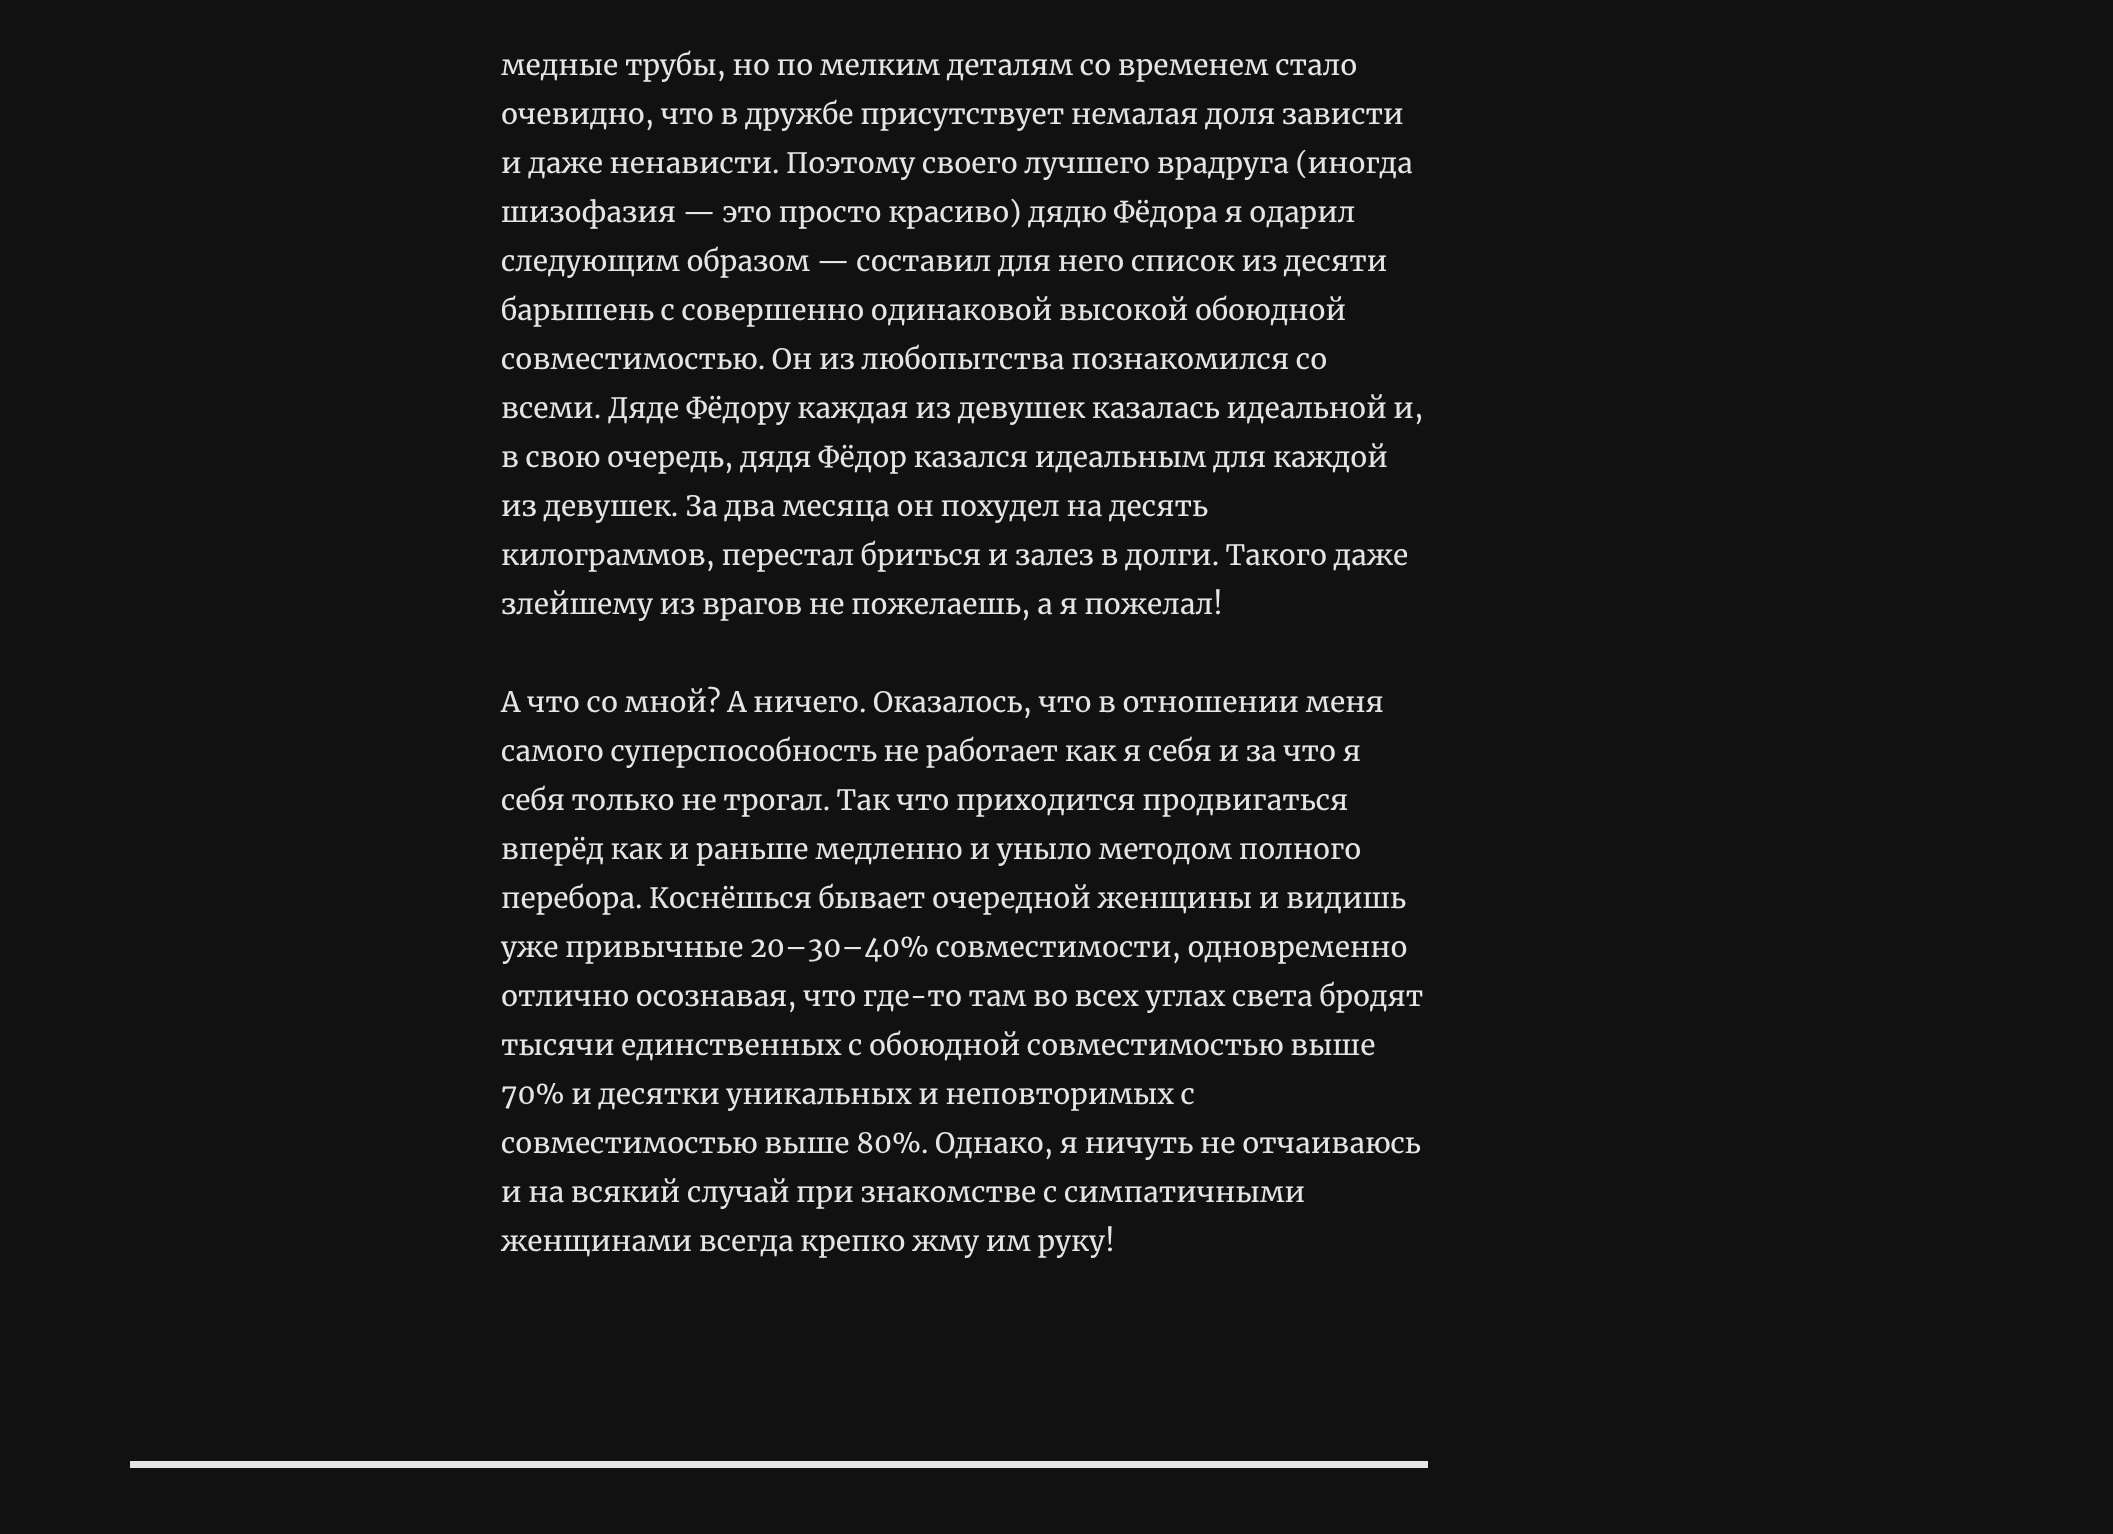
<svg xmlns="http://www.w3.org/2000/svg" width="2113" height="1534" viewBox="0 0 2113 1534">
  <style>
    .t1 { font: 28px Merriweather; fill: #e5e5e5; }
  </style>
  <rect width="100%" height="100%" fill="#111"/>
  <text x="501" y="75" class="t1">медные трубы, но по мелким деталям со временем стало</text>
  <text x="501" y="124" class="t1">очевидно, что в дружбе присутствует немалая доля зависти</text>
  <text x="501" y="173" class="t1">и даже ненависти. Поэтому своего лучшего врадруга (иногда</text>
  <text x="501" y="222" class="t1">шизофазия — это просто красиво) дядю Фёдора я одарил</text>
  <text x="501" y="271" class="t1">следующим образом — составил для него список из десяти</text>
  <text x="501" y="320" class="t1">барышень с совершенно одинаковой высокой обоюдной</text>
  <text x="501" y="369" class="t1">совместимостью. Он из любопытства познакомился со</text>
  <text x="501" y="418" class="t1">всеми. Дяде Фёдору каждая из девушек казалась идеальной и,</text>
  <text x="501" y="467" class="t1">в свою очередь, дядя Фёдор казался идеальным для каждой</text>
  <text x="501" y="516" class="t1">из девушек. За два месяца он похудел на десять</text>
  <text x="501" y="565" class="t1">килограммов, перестал бриться и залез в долги. Такого даже</text>
  <text x="501" y="614" class="t1">злейшему из врагов не пожелаешь, а я пожелал!</text>
  <text x="501" y="712" class="t1">А что со мной? А ничего. Оказалось, что в отношении меня</text>
  <text x="501" y="761" class="t1">самого суперспособность не работает как я себя и за что я</text>
  <text x="501" y="810" class="t1">себя только не трогал. Так что приходится продвигаться</text>
  <text x="501" y="859" class="t1">вперёд как и раньше медленно и уныло методом полного</text>
  <text x="501" y="908" class="t1">перебора. Коснёшься бывает очередной женщины и видишь</text>
  <text x="501" y="957" class="t1">уже привычные 20–30–40% совместимости, одновременно</text>
  <text x="501" y="1006" class="t1">отлично осознавая, что где-то там во всех углах света бродят</text>
  <text x="501" y="1055" class="t1">тысячи единственных с обоюдной совместимостью выше</text>
  <text x="501" y="1104" class="t1">70% и десятки уникальных и неповторимых с</text>
  <text x="501" y="1153" class="t1">совместимостью выше 80%. Однако, я ничуть не отчаиваюсь</text>
  <text x="501" y="1202" class="t1">и на всякий случай при знакомстве с симпатичными</text>
  <text x="501" y="1251" class="t1">женщинами всегда крепко жму им руку!</text>
  <rect x="130" y="1461" width="1298" height="7" fill="#e5e5e5"/>
</svg>
